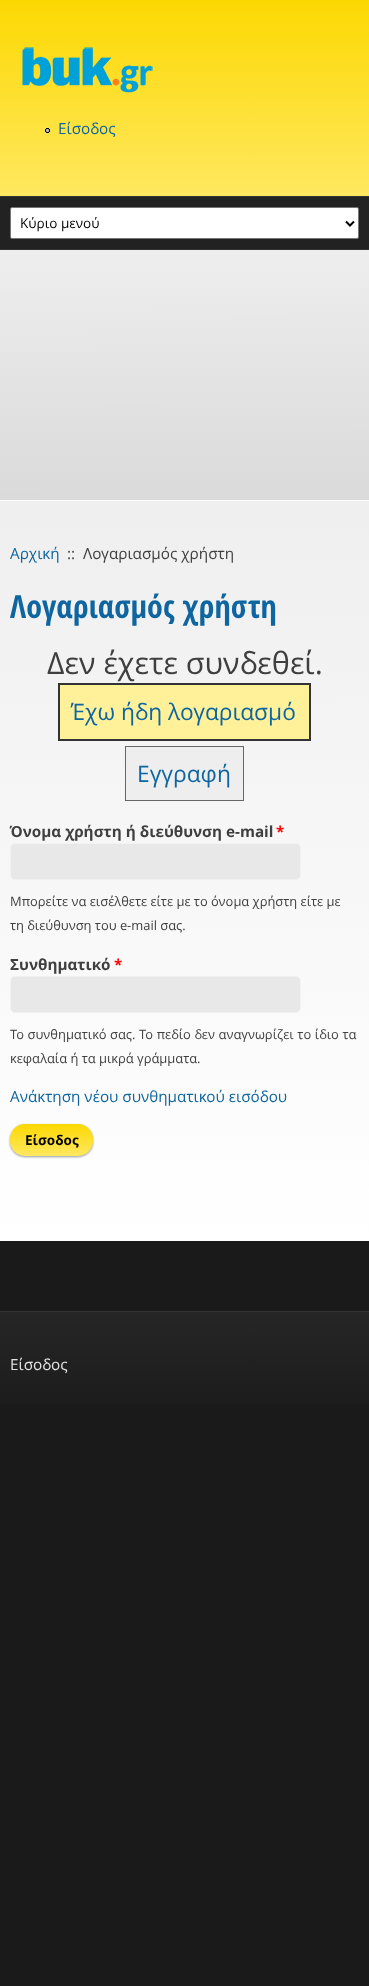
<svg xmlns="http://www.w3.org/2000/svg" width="369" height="1986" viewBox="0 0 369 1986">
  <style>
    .t1 { font: 15.25px Open Sans; fill: #0e659f; }
    .t2 { font: 13.5px Open Sans; fill: #000; }
    .t3 { font: 15.25px Open Sans; fill: #3f3f3f; }
    .t4 { font: bold 32px Open Sans Condensed; fill: #0e659f; }
    .t5 { font: 30.5px Open Sans; fill: #3f3f3f; }
    .t6 { font: 22.75px Open Sans; fill: #0e659f; }
    .t7 { font: bold 15.25px Open Sans; fill: #3f3f3f; }
    .t8 { font: bold 15.25px Open Sans; fill: #f00; }
    .t9 { font: 12.9px Open Sans; fill: #3f3f3f; }
    .t10 { font: bold 13.5px Open Sans; fill: #000; }
    .t11 { font: 15.25px Open Sans; fill: #e4e4e4; }
  </style>
  <defs>
    <linearGradient id="g1" gradientUnits="userSpaceOnUse" x1="185" y1="0" x2="185" y2="196"><stop offset="0" stop-color="#fcd801"/><stop offset="1" stop-color="#ffe860"/></linearGradient>
    <linearGradient id="g2" gradientUnits="userSpaceOnUse" x1="184" y1="250" x2="185" y2="500"><stop offset="0" stop-color="#efeeee"/><stop offset="1" stop-color="#dadada"/></linearGradient>
    <linearGradient id="g3" gradientUnits="userSpaceOnUse" x1="184" y1="501" x2="185" y2="1241"><stop offset="0" stop-color="#efefef"/><stop offset="1" stop-color="#fff"/></linearGradient>
    <linearGradient id="g4" gradientUnits="userSpaceOnUse" x1="52" y1="1124" x2="52" y2="1156"><stop offset="0" stop-color="#fcd801"/><stop offset="1" stop-color="#ffe860"/></linearGradient>
    <linearGradient id="g5" gradientUnits="userSpaceOnUse" x1="185" y1="1312" x2="185" y2="1428"><stop offset="0" stop-color="#262626"/><stop offset="1" stop-color="#1a1a1a"/></linearGradient>
  </defs>
  <rect width="100%" height="100%" fill="#1a1a1a"/>
  <rect x="0" y="0" width="369" height="196" fill="url(#g1)"/>
  <image x="22" y="47" width="131" height="46" href="images/1.png"/>
  <image x="45" y="128" width="5" height="5" href="images/2.png"/>
  <text x="58" y="134" class="t1">Είσοδος</text>
  <rect x="0" y="197" width="369" height="52" fill="#222"/>
  <rect x="0" y="196" width="369" height="1" fill="#353535"/>
  <rect x="0" y="249" width="369" height="1" fill="#353535"/>
  <rect x="10.5" y="207.5" width="348" height="31" rx="1.5" fill="#fff" stroke="#767676"/>
  <path d="M346 221.5L350 225.5L354 221.5" fill="none" stroke="#000" stroke-width="2"/>
  <text x="20" y="228" class="t2">Κύριο μενού</text>
  <rect x="0" y="250" width="369" height="250" fill="url(#g2)"/>
  <rect x="0" y="500" width="369" height="1" fill="#fcfcfc"/>
  <rect x="0" y="501" width="369" height="740" fill="url(#g3)"/>
  <text x="10" y="559" class="t1">Αρχική</text>
  <text x="67" y="559" class="t3">::</text>
  <text x="83" y="559" class="t3">Λογαριασμός χρήστη</text>
  <text x="10" y="618" class="t4">Λογαριασμός χρήστη</text>
  <text x="47" y="674" class="t5">Δεν έχετε συνδεθεί.</text>
  <rect x="59" y="684" width="251" height="56" fill="#fff19a" stroke="#333" stroke-width="2"/>
  <text x="71" y="720" class="t6">Έχω ήδη λογαριασμό</text>
  <rect x="125.5" y="746.5" width="118" height="54" fill="#eee" stroke="#666"/>
  <text x="137" y="782" class="t6">Εγγραφή</text>
  <text x="10" y="837" class="t7">Όνομα χρήστη ή διεύθυνση e-mail</text>
  <text x="276" y="837" class="t8">*</text>
  <rect x="10.5" y="843.5" width="290" height="36" rx="4.5" fill="#e8e8e8" stroke="#f2f2f2"/>
  <text x="10" y="906" class="t9">Μπορείτε να εισέλθετε είτε με το όνομα χρήστη είτε με</text>
  <text x="10" y="930" class="t9">τη διεύθυνση του e-mail σας.</text>
  <text x="10" y="970" class="t7">Συνθηματικό</text>
  <text x="114" y="970" class="t8">*</text>
  <rect x="10.5" y="976.5" width="290" height="36" rx="4.5" fill="#e8e8e8" stroke="#f2f2f2"/>
  <text x="10" y="1039" word-spacing="0.25" class="t9">Το συνθηματικό σας. Το πεδίο δεν αναγνωρίζει το ίδιο τα</text>
  <text x="10" y="1063" class="t9">κεφαλαία ή τα μικρά γράμματα.</text>
  <text x="10" y="1102" class="t1">Ανάκτηση νέου συνθηματικού εισόδου</text>
  <rect x="10" y="1125" width="83" height="32" rx="15" fill="#939da2" filter="blur(1px)"/>
  <rect x="10" y="1124" width="83" height="32" rx="15" fill="url(#g4)"/>
  <text x="25" y="1145" class="t10">Είσοδος</text>
  <rect x="0" y="1312" width="369" height="92" fill="url(#g5)"/>
  <rect x="0" y="1311" width="369" height="1" fill="#353535"/>
  <text x="10" y="1370" class="t11">Είσοδος</text>
</svg>
